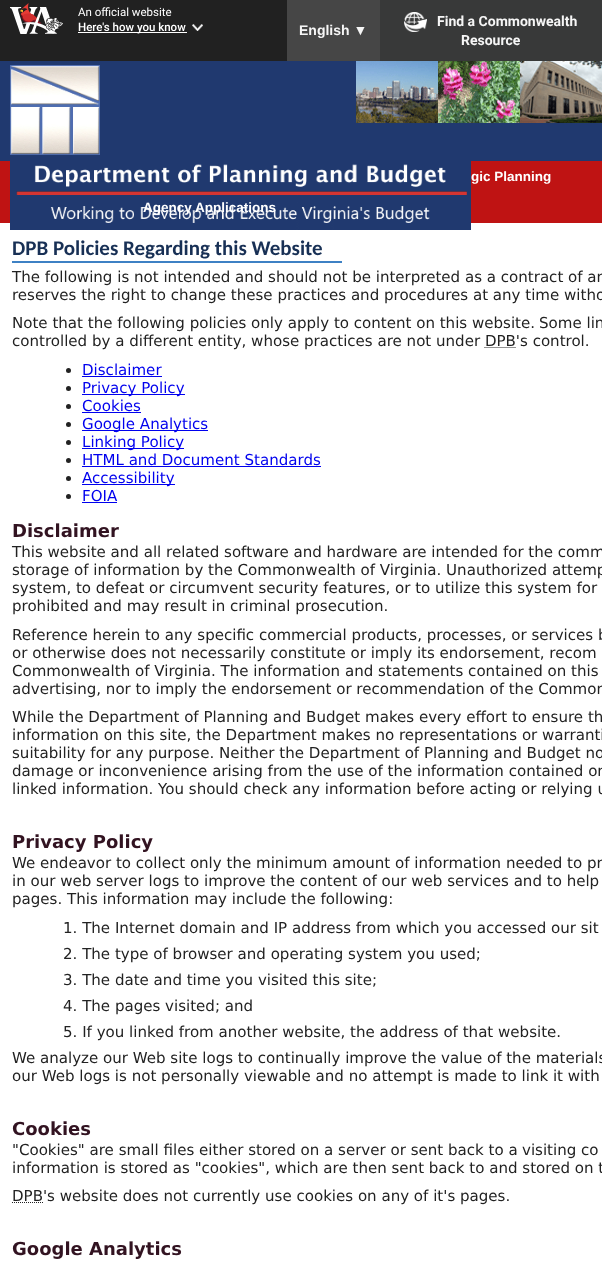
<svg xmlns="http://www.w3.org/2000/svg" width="602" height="1261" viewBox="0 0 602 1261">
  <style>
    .t1 { font: 11.5px Roboto; fill: #fff; }
    .t2 { font: 500 11.5px Roboto; fill: #fff; }
    .t3 { font: bold 14px Liberation Sans; fill: #f6f6f6; }
    .t4 { font: bold 14px Roboto; fill: #f6f6f6; }
    .t5 { font: bold 13.5px Liberation Sans; fill: #fff; }
    .t6 { font: bold 21px Carlito; fill: #183055; }
    .t7 { font: 15.05px DejaVu Sans; fill: #222; }
    .t8 { font: 15.05px DejaVu Sans; fill: #00e; }
    .t9 { font: bold 18px DejaVu Sans; fill: #321321; }
  </style>
  <rect width="100%" height="100%" fill="#fff"/>
  <rect x="0" y="0" width="287" height="61" fill="#212121"/>
  <image x="10" y="3" width="53" height="31" href="images/1.png"/>
  <text x="78" y="16" class="t1">An official website</text>
  <rect x="78" y="32" width="109" height="1" fill="#fff"/>
  <text x="78" y="31" class="t2">Here's how you know</text>
  <image x="192" y="24" width="11" height="7" href="images/2.png"/>
  <rect x="287" y="0" width="93" height="61" fill="#464646"/>
  <text x="299" y="35" class="t3">English ▼</text>
  <rect x="380" y="0" width="222" height="61" fill="#383939"/>
  <image x="404" y="12" width="23" height="20" href="images/3.png"/>
  <text x="437" y="26" class="t4">Find a Commonwealth</text>
  <text x="461" y="45" class="t4">Resource</text>
  <rect x="0" y="61" width="602" height="100" fill="#20396f"/>
  <image x="10" y="65" width="90" height="90" href="images/4.png"/>
  <rect x="0" y="161" width="602" height="62" fill="#bf1313"/>
  <image x="10" y="161" width="461" height="69" href="images/5.png"/>
  <image x="356" y="61" width="82" height="62" href="images/6.png"/>
  <image x="438" y="61" width="82" height="62" href="images/7.png"/>
  <image x="520" y="61" width="82" height="62" href="images/8.png"/>
  <text x="471" y="181" class="t5">gic Planning</text>
  <text x="143" y="212" class="t5">Agency Applications</text>
  <text x="12" y="255" class="t6">DPB Policies Regarding this Website</text>
  <rect x="12" y="261" width="330" height="2" fill="#3e81c4"/>
  <text x="12" y="282" class="t7">The following is not intended and should not be interpreted as a contract of an</text>
  <text x="12" y="300" class="t7">reserves the right to change these practices and procedures at any time witho</text>
  <text x="12" y="328" class="t7">Note that the following policies only apply to content on this website.</text>
  <text x="539" y="328" class="t7">Some lin</text>
  <text x="12" y="346" class="t7">controlled by a different entity, whose practices are not under DPB's control.</text>
  <path d="M484.5 347.5H515.5" fill="none" stroke="#222" stroke-dasharray="1 1"/>
  <circle cx="68.5" cy="370.5" r="2.5" fill="#222"/>
  <text x="82" y="375" class="t8">Disclaimer</text>
  <rect x="82" y="376" width="80" height="1" fill="#00e"/>
  <circle cx="68.5" cy="388.5" r="2.5" fill="#222"/>
  <rect x="82" y="394" width="103" height="1" fill="#00e"/>
  <text x="82" y="393" class="t8">Privacy Policy</text>
  <circle cx="68.5" cy="406.5" r="2.5" fill="#222"/>
  <text x="82" y="411" class="t8">Cookies</text>
  <rect x="82" y="412" width="59" height="1" fill="#00e"/>
  <circle cx="68.5" cy="424.5" r="2.5" fill="#222"/>
  <rect x="82" y="430" width="126" height="1" fill="#00e"/>
  <text x="82" y="429" class="t8">Google Analytics</text>
  <circle cx="68.5" cy="442.5" r="2.5" fill="#222"/>
  <rect x="82" y="448" width="102" height="1" fill="#00e"/>
  <text x="82" y="447" class="t8">Linking Policy</text>
  <circle cx="68.5" cy="460.5" r="2.5" fill="#222"/>
  <text x="82" y="465" class="t8">HTML and Document Standards</text>
  <rect x="82" y="466" width="239" height="1" fill="#00e"/>
  <circle cx="68.5" cy="478.5" r="2.5" fill="#222"/>
  <rect x="82" y="484" width="93" height="1" fill="#00e"/>
  <text x="82" y="483" class="t8">Accessibility</text>
  <circle cx="68.5" cy="496.5" r="2.5" fill="#222"/>
  <text x="82" y="501" class="t8">FOIA</text>
  <rect x="82" y="502" width="35" height="1" fill="#00e"/>
  <text x="12" y="537" class="t9">Disclaimer</text>
  <text x="12" y="557" class="t7">This website and all related software and hardware are intended for the comm</text>
  <text x="12" y="575" class="t7">storage of information by the Commonwealth of Virginia. Unauthorized attemp</text>
  <text x="12" y="593" class="t7">system, to defeat or circumvent security features, or to utilize this system for</text>
  <text x="12" y="611" class="t7">prohibited and may result in criminal prosecution.</text>
  <text x="12" y="640" class="t7">Reference herein to any specific commercial products, processes, or services b</text>
  <text x="12" y="658" class="t7">or otherwise does not necessarily constitute or imply its endorsement, recom</text>
  <text x="12" y="676" class="t7">Commonwealth of Virginia. The information and statements contained on this</text>
  <text x="12" y="694" class="t7">advertising, nor to imply the endorsement or recommendation of the Common</text>
  <text x="12" y="722" class="t7">While the Department of Planning and Budget makes every effort to ensure th</text>
  <text x="12" y="740" class="t7">information on this site, the Department makes no representations or warranti</text>
  <text x="12" y="758" class="t7">suitability for any purpose. Neither the Department of Planning and Budget no</text>
  <text x="12" y="776" class="t7">damage or inconvenience arising from the use of the information contained on</text>
  <text x="12" y="794" class="t7">linked information. You should check any information before acting or relying u</text>
  <text x="12" y="848" class="t9">Privacy Policy</text>
  <text x="12" y="868" class="t7">We endeavor to collect only the minimum amount of information needed to pr</text>
  <text x="12" y="886" class="t7">in our web server logs to improve the content of our web services and to help</text>
  <text x="12" y="904" class="t7">pages. This information may include the following:</text>
  <text x="63" y="933" class="t7">1. The Internet domain and IP address from which you accessed our sit</text>
  <text x="63" y="959" class="t7">2. The type of browser and operating system you used;</text>
  <text x="63" y="985" class="t7">3. The date and time you visited this site;</text>
  <text x="63" y="1011" class="t7">4. The pages visited; and</text>
  <text x="63" y="1037" class="t7">5. If you linked from another website, the address of that website.</text>
  <text x="12" y="1063" class="t7">We analyze our Web site logs to continually improve the value of the materials</text>
  <text x="12" y="1081" class="t7">our Web logs is not personally viewable and no attempt is made to link it with</text>
  <text x="12" y="1135" class="t9">Cookies</text>
  <text x="12" y="1155" class="t7">"Cookies" are small files either stored on a server or sent back to a</text>
  <text x="522" y="1155" class="t7">visiting co</text>
  <text x="12" y="1173" class="t7">information is stored as "cookies", which are then sent back to and stored on t</text>
  <path d="M12 1202.5H43" fill="none" stroke="#222" stroke-dasharray="1 1"/>
  <text x="12" y="1201" class="t7">DPB's website does not currently use cookies on any of it's pages.</text>
  <text x="12" y="1255" class="t9">Google Analytics</text>
</svg>
